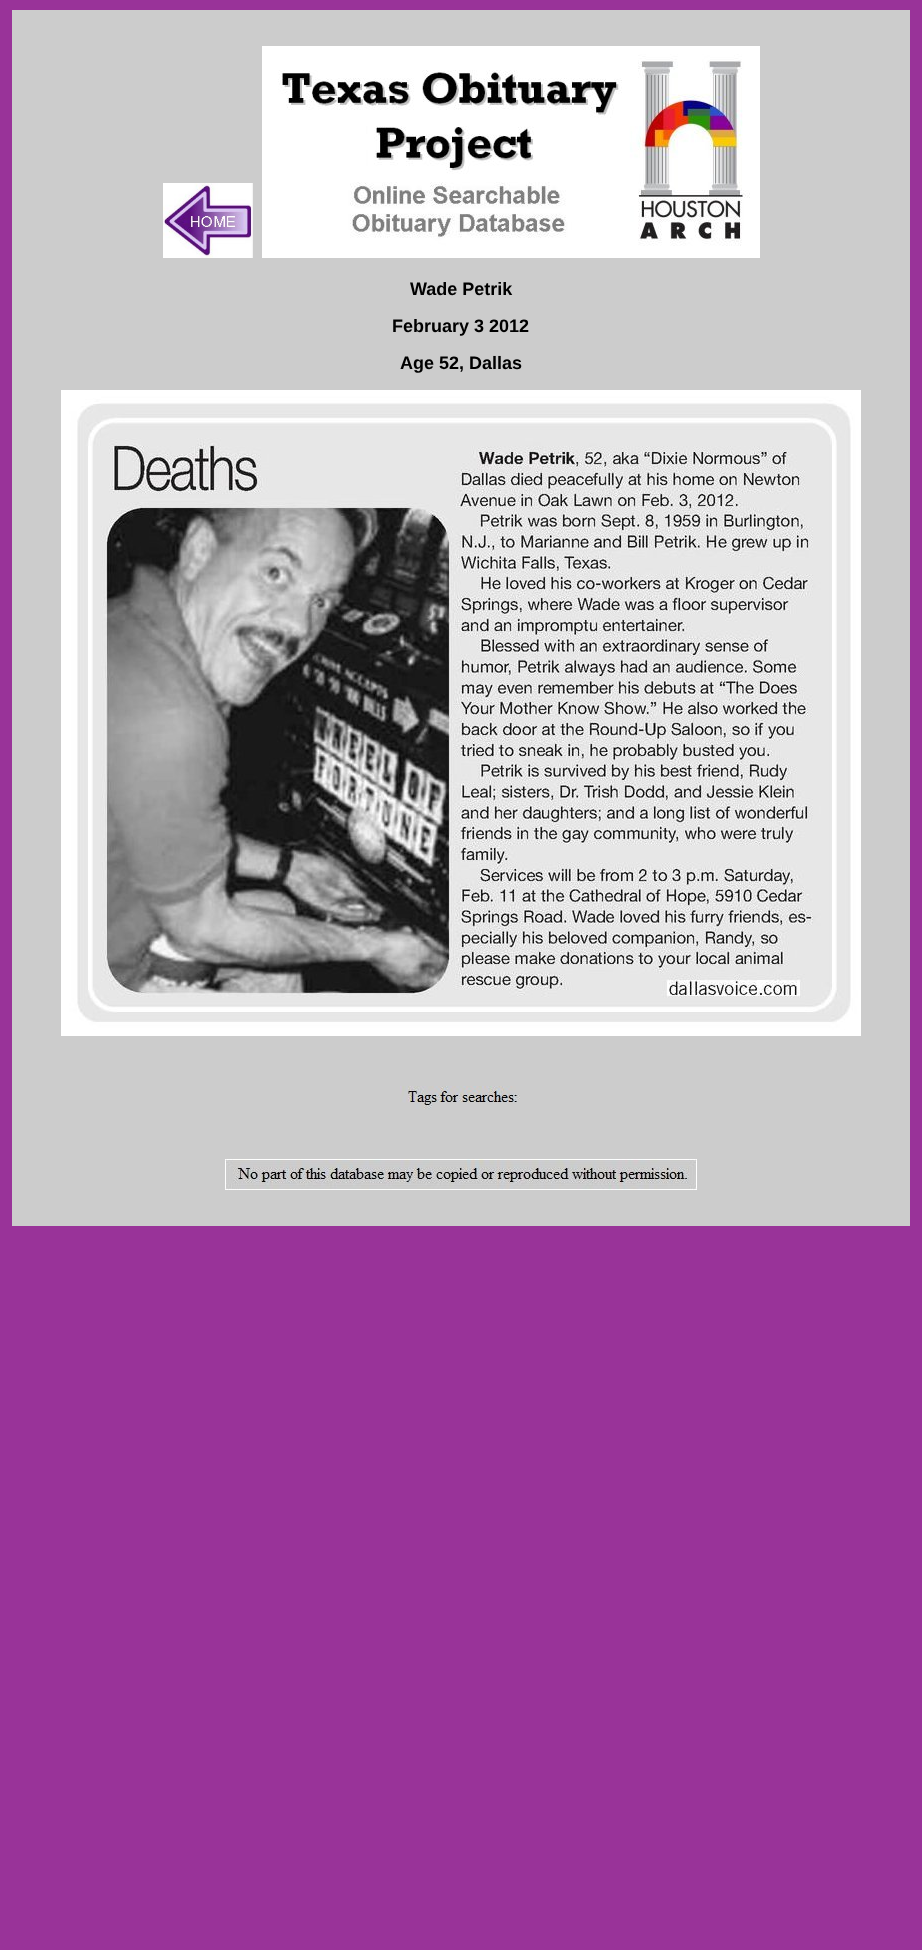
<svg xmlns="http://www.w3.org/2000/svg" width="922" height="1950" viewBox="0 0 922 1950">
  <style>
    .t1 { font: bold 18px Liberation Sans; fill: #000; }
  </style>
  <rect width="100%" height="100%" fill="#939"/>
  <rect x="12" y="10" width="898" height="1216" fill="#ccc"/>
  <image x="163" y="183" width="90" height="75" href="images/1.png"/>
  <image x="262" y="46" width="498" height="212" href="images/2.png"/>
  <text x="410" y="295" class="t1">Wade Petrik</text>
  <text x="392" y="332" class="t1">February 3 2012</text>
  <text x="400" y="369" class="t1">Age 52, Dallas</text>
  <image x="61" y="390" width="800" height="646" href="images/3.png"/>
  <image x="400" y="1086" width="120" height="23" href="images/4.png"/>
  <image x="225" y="1159" width="472" height="31" href="images/5.png"/>
</svg>
